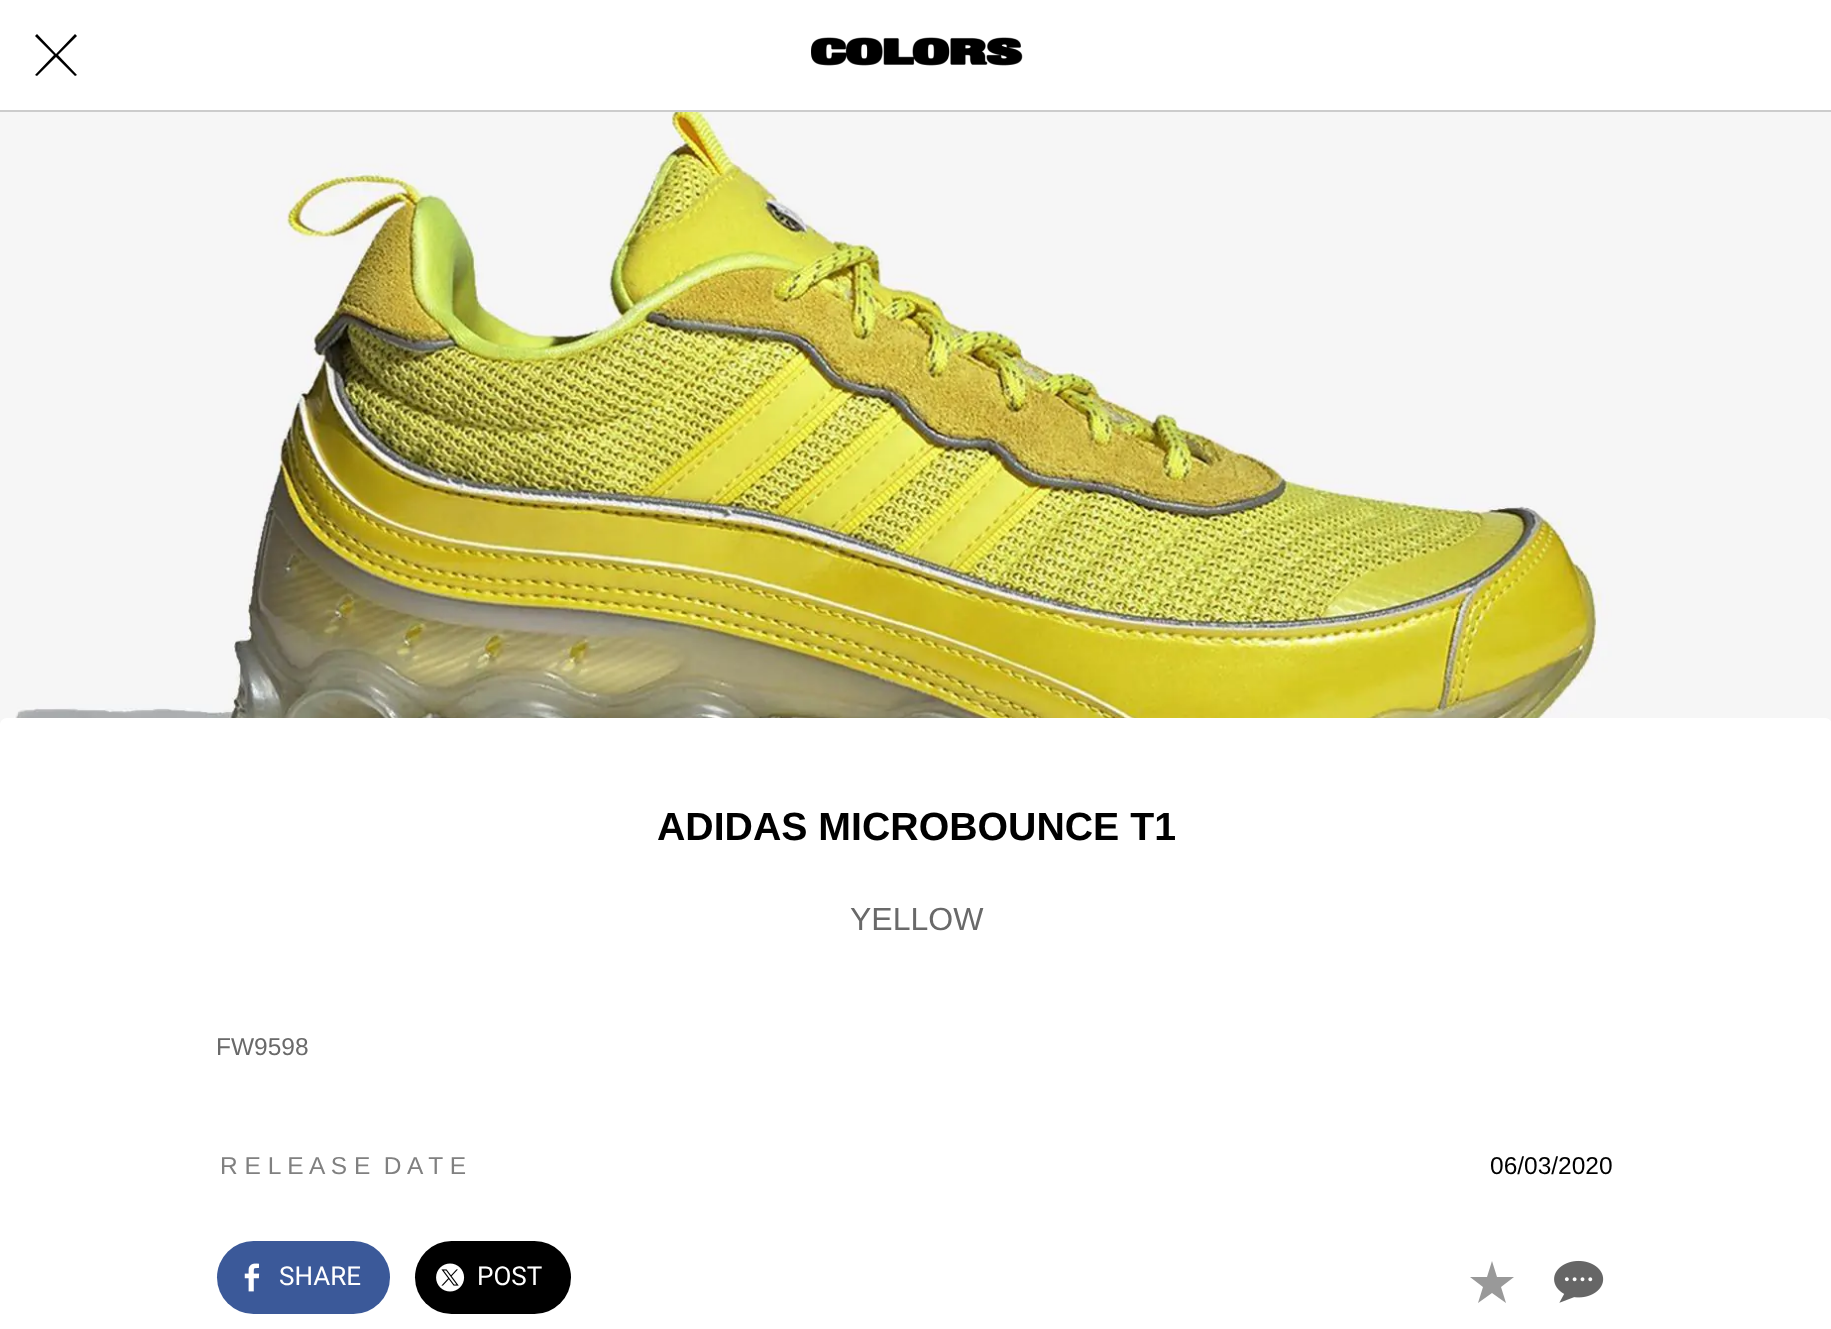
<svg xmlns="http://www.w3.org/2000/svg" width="1831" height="1329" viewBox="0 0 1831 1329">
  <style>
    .t1 { font: bold 39.25px Liberation Sans; fill: #000; }
    .t2 { font: 32px Liberation Sans; fill: #696969; }
    .t3 { font: 24.5px Liberation Sans; fill: #696969; }
    .t4 { font: 24.5px Liberation Sans; fill: #808080; }
    .t5 { font: 24.5px Liberation Sans; fill: #000; }
    .t6 { font: 26px Roboto; fill: #fff; }
  </style>
  <rect width="100%" height="100%" fill="#fff"/>
  <rect x="0" y="110" width="1831" height="2" fill="#ccc"/>
  <path d="M77 36L75 34L56 54L37 34L35 36L54 55L35 75L37 76L56 57L75 76L77 75L58 55Z" fill="#000"/>
  <image x="811" y="37" width="212" height="29" href="images/1.png"/>
  <image x="0" y="112" width="1831" height="613" href="images/2.png"/>
  <path d="M7 718H1825C1829 718 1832 721 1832 725V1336H0V725C0 721 3 718 7 718Z" fill="#fff"/>
  <text x="657" y="840" class="t1">ADIDAS MICROBOUNCE T1</text>
  <text x="850" y="930" class="t2">YELLOW</text>
  <text x="216" y="1055" class="t3">FW9598</text>
  <text x="220" y="1174" class="t4" xml:space="preserve">R E L E A S E  D A T E</text>
  <text x="1490" y="1174" class="t5">06/03/2020</text>
  <rect x="217" y="1241" width="173" height="73" rx="36.5" fill="#3b5999"/>
  <image x="244" y="1263" width="16" height="29" href="images/3.png"/>
  <text x="279" y="1285" class="t6">SHARE</text>
  <rect x="415" y="1241" width="156" height="73" rx="36.5" fill="#000"/>
  <image x="436" y="1263" width="29" height="29" href="images/4.png"/>
  <text x="477" y="1285" class="t6">POST</text>
  <path d="M1514 1277H1497L1492 1261L1487 1277H1470L1483 1287L1478 1303L1492 1293L1506 1303L1501 1287Z" fill="#999"/>
  <image x="1554" y="1260" width="50" height="43" href="images/5.png"/>
</svg>
